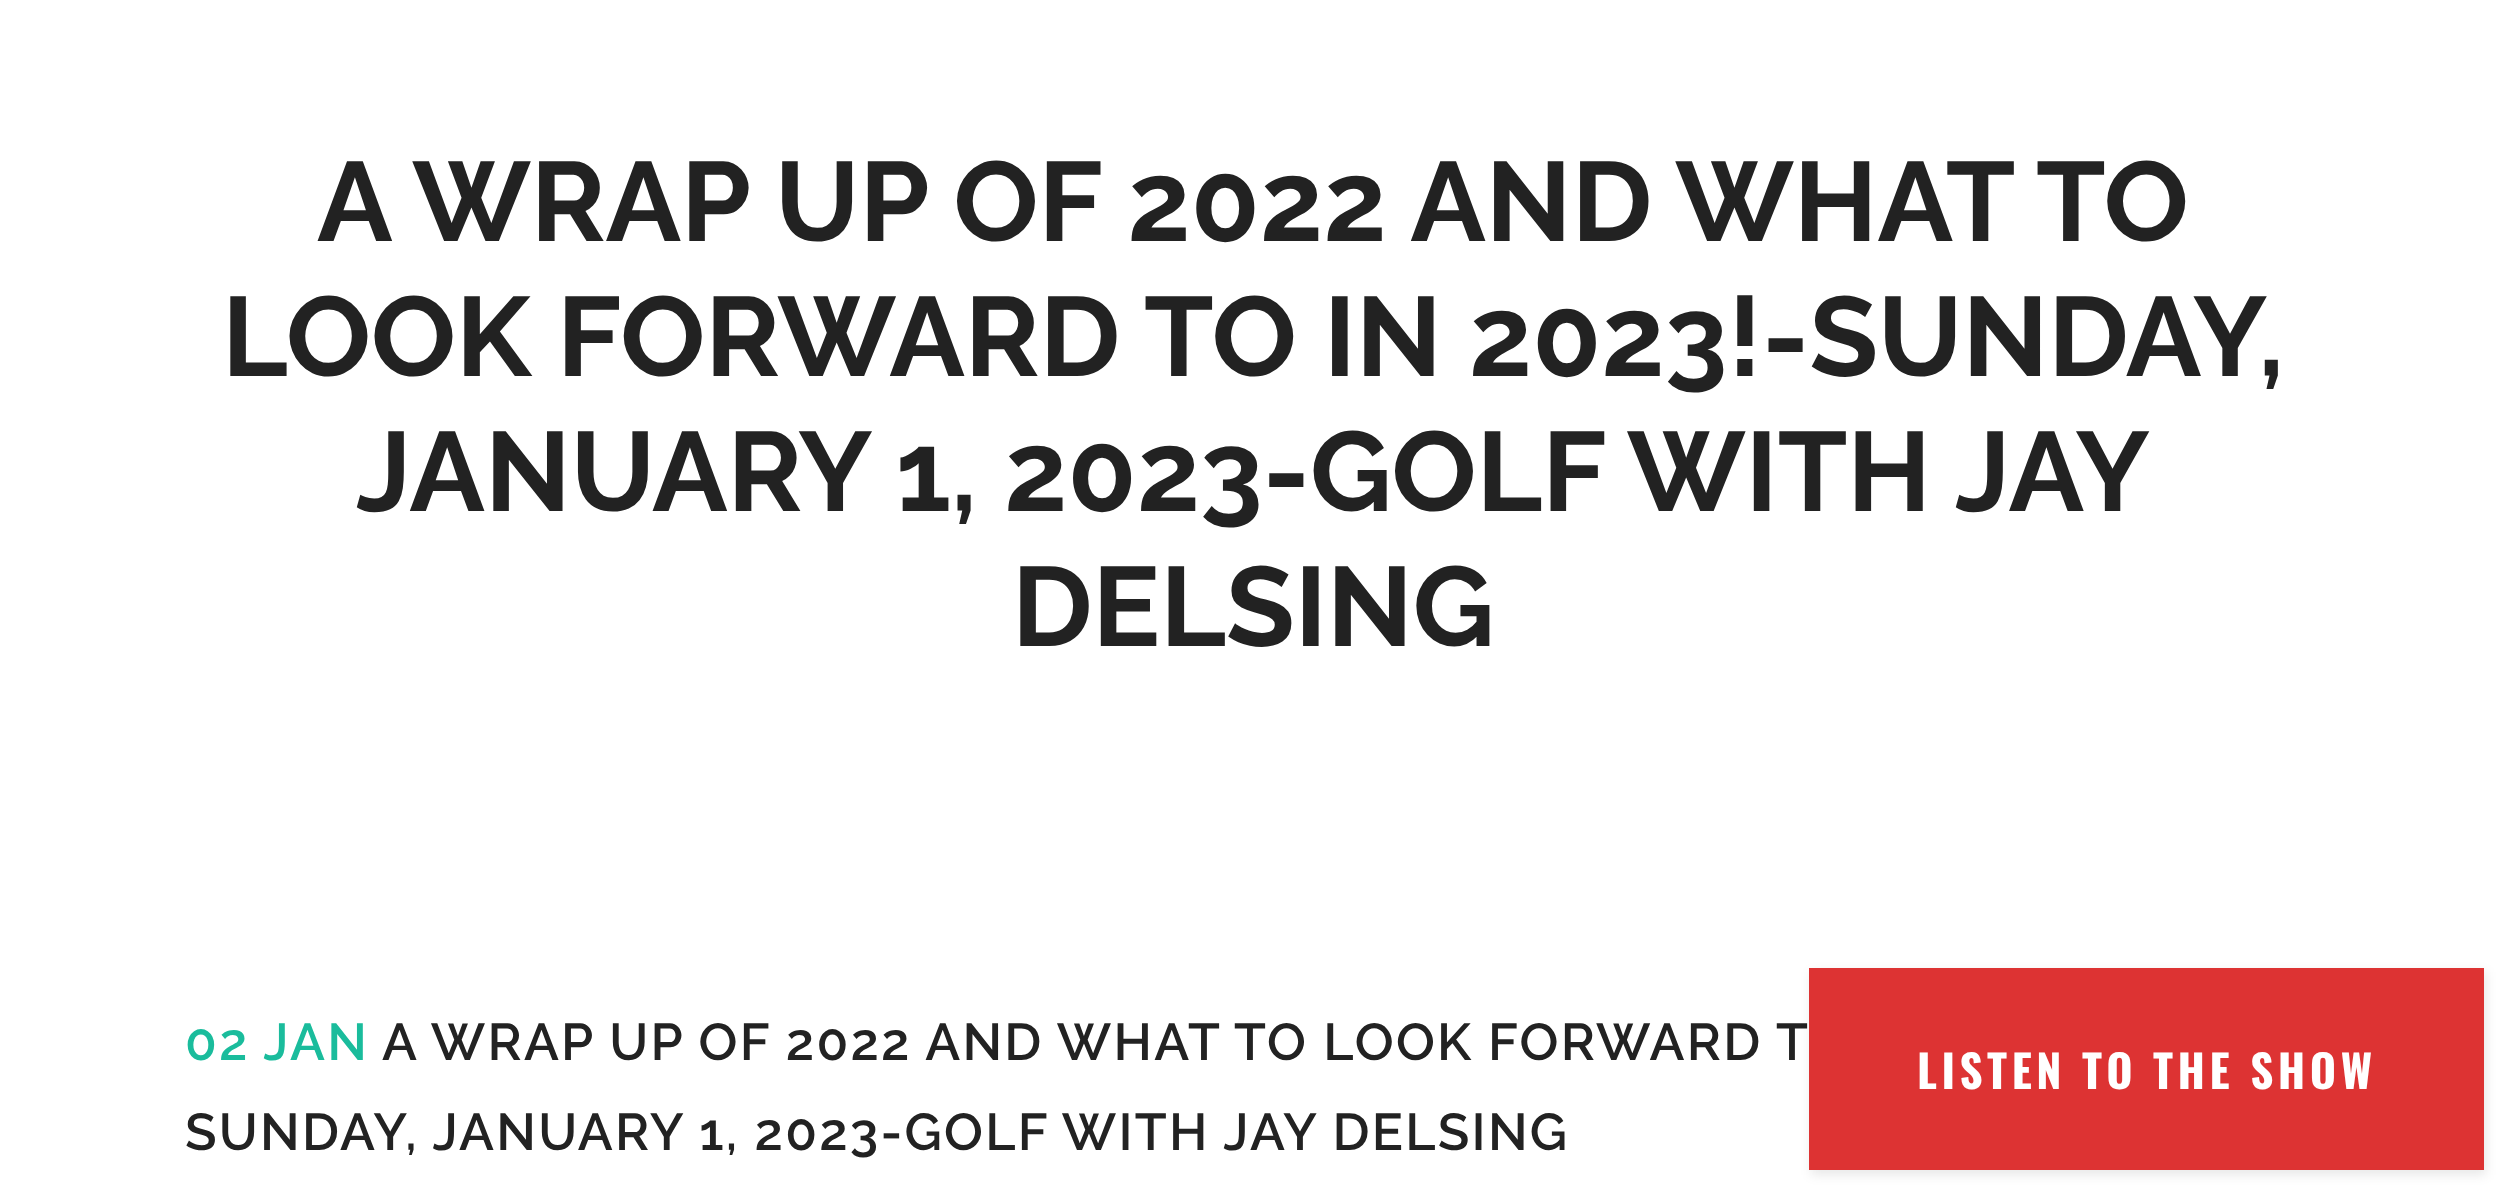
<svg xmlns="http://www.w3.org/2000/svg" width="2506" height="1192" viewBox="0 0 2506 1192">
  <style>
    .t1 { font: bold 112.5px Raleway; fill: #222; }
    .t2 { font: 600 51.75px Raleway; letter-spacing: 2.25px; fill: #1abc9c; }
    .t3 { font: 600 51.75px Raleway; letter-spacing: 2.25px; fill: #222; }
    .t4 { font: bold 45px Oswald; letter-spacing: 4.5px; fill: #fff; }
  </style>
  <rect width="100%" height="100%" fill="#fff"/>
  <text x="317" y="241" class="t1">A WRAP UP OF 2022 AND WHAT TO</text>
  <text x="222" y="376" class="t1">LOOK FORWARD TO IN 2023!-SUNDAY,</text>
  <text x="356" y="511" class="t1">JANUARY 1, 2023-GOLF WITH JAY</text>
  <text x="1012" y="646" class="t1">DELSING</text>
  <text x="185" y="1060" class="t2">02 JAN</text>
  <text x="382" y="1060" class="t3">A WRAP UP OF 2022 AND WHAT TO LOOK FORWARD T</text>
  <text x="185" y="1150" class="t3">SUNDAY, JANUARY 1, 2023-GOLF WITH JAY DELSING</text>
  <rect x="1811" y="972" width="675" height="203" fill="#00000017" filter="blur(5.5px)"/>
  <rect x="1809" y="968" width="675" height="202" fill="#d33"/>
  <text x="1917" y="1089" class="t4">LISTEN TO THE SHOW</text>
</svg>
